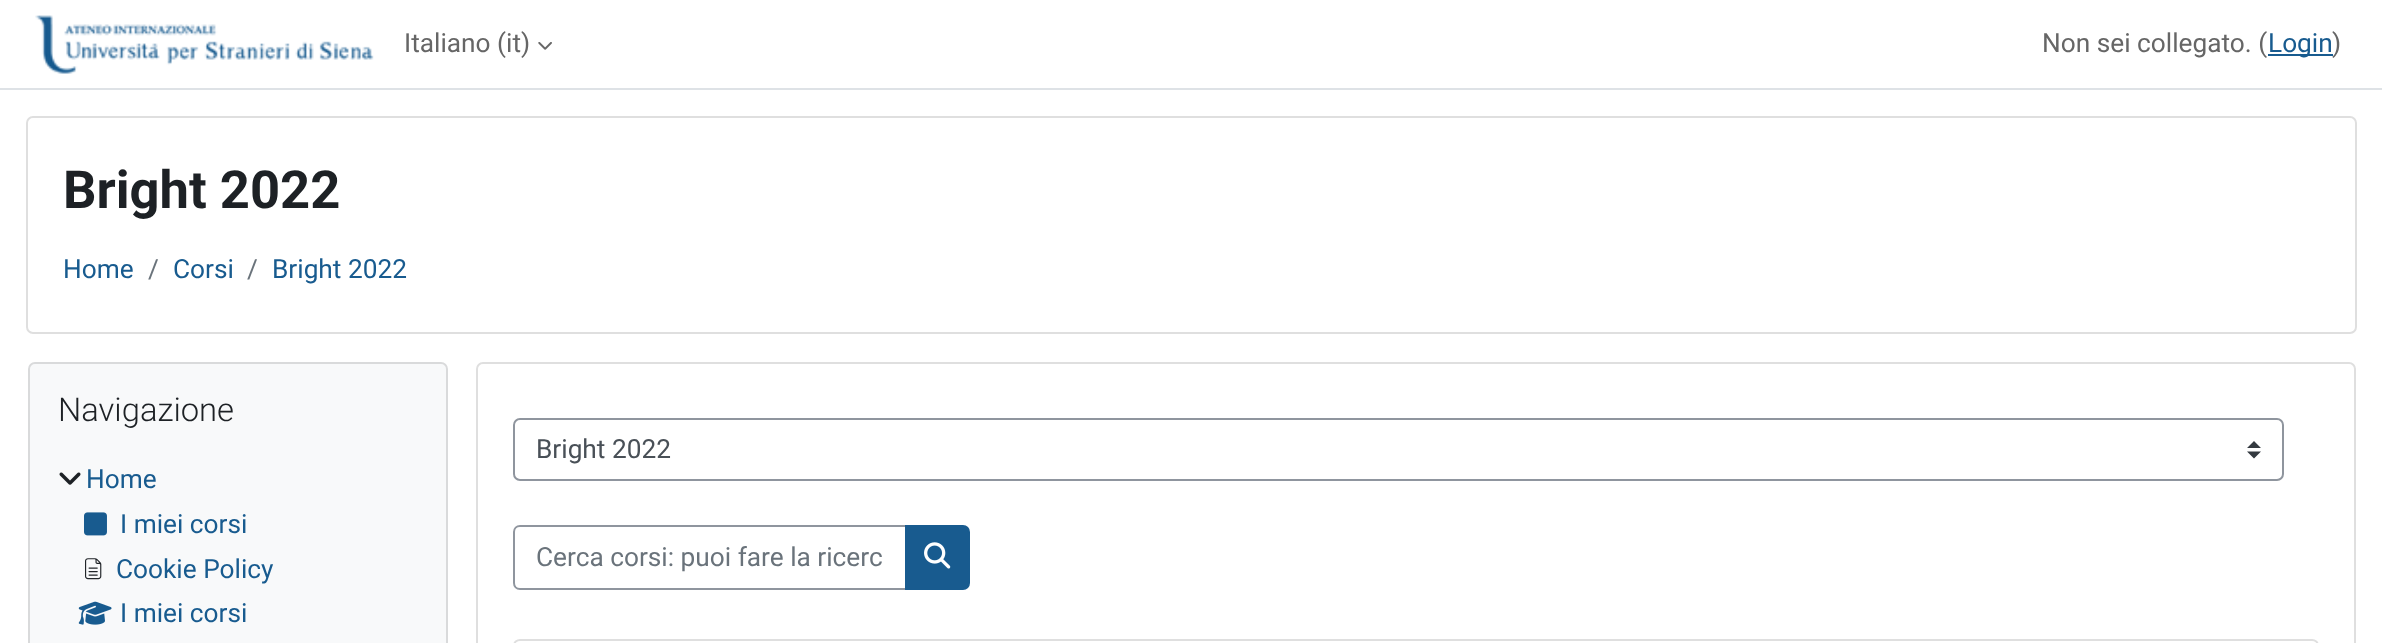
<svg xmlns="http://www.w3.org/2000/svg" width="2382" height="643" viewBox="0 0 2382 643">
  <style>
    .t1 { font: 26.25px Roboto; fill: #666; }
    .t2 { font: 26.25px Roboto; fill: #185b8f; }
    .t3 { font: bold 52.5px Roboto; fill: #1d2125; }
    .t4 { font: 26.25px Roboto; fill: #6a737b; }
    .t5 { font: 300 32.75px Roboto; fill: #1d2125; }
    .t6 { font: 26.25px Roboto; fill: #495057; }
  </style>
  <rect width="100%" height="100%" fill="#fff"/>
  <rect x="0" y="88" width="2382" height="2" fill="#dee2e6"/>
  <image x="35" y="15" width="339" height="59" href="images/1.png"/>
  <text x="404" y="52" class="t1">Italiano (it)</text>
  <image x="538" y="42" width="14" height="8" href="images/2.png"/>
  <text x="2042" y="52" class="t1">Non sei collegato. (</text>
  <rect x="2268" y="54" width="65" height="2" fill="#185b8f"/>
  <text x="2268" y="52" class="t2">Login</text>
  <text x="2332" y="52" class="t1">)</text>
  <rect x="27" y="117" width="2329" height="216" rx="6" fill="none" stroke="#dfdfdf" stroke-width="2"/>
  <text x="63" y="208" class="t3">Bright 2022</text>
  <text x="63" y="278" class="t2">Home</text>
  <text x="148" y="278" class="t4">/</text>
  <text x="173" y="278" class="t2">Corsi</text>
  <text x="247" y="278" class="t4">/</text>
  <text x="272" y="278" class="t2">Bright 2022</text>
  <rect x="28" y="362" width="420" height="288" rx="7" fill="#f8f9fa"/>
  <rect x="29" y="363" width="418" height="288" rx="6" fill="none" stroke="#0000001f" stroke-width="2"/>
  <text x="58" y="421" class="t5">Navigazione</text>
  <image x="59" y="472" width="22" height="13" href="images/3.png"/>
  <text x="86" y="488" class="t2">Home</text>
  <image x="84" y="512" width="23" height="24" href="images/4.png"/>
  <text x="120" y="533" class="t2">I miei corsi</text>
  <image x="85" y="558" width="17" height="22" href="images/5.png"/>
  <text x="116" y="578" class="t2">Cookie Policy</text>
  <image x="78" y="601" width="34" height="24" href="images/6.png"/>
  <text x="120" y="622" class="t2">I miei corsi</text>
  <rect x="477" y="363" width="1878" height="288" rx="6" fill="none" stroke="#dfdfdf" stroke-width="2"/>
  <path d="M2254 441L2247 448H2261ZM2254 458.5L2247 451.5H2261Z" fill="#343a40"/>
  <rect x="514" y="419" width="1769" height="61" rx="6" fill="none" stroke="#8f959e" stroke-width="2"/>
  <text x="536" y="458" class="t6">Bright 2022</text>
  <path d="M520 526H906V589H520C516.5 589 514 586.5 514 583V532C514 528.5 516.5 526 520 526Z" fill="none" stroke="#8f959e" stroke-width="2"/>
  <text x="536" y="566" class="t4">Cerca corsi: puoi fare la ricerc</text>
  <path d="M906 526H963C966.5 526 969 528.5 969 532V583C969 586.5 966.5 589 963 589H906Z" fill="#185b8f" stroke="#185b8f" stroke-width="2"/>
  <image x="924" y="542" width="27" height="27" href="images/7.png"/>
  <rect x="514" y="640" width="1804" height="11" rx="6" fill="none" stroke="#dfdfdf" stroke-width="2"/>
</svg>
